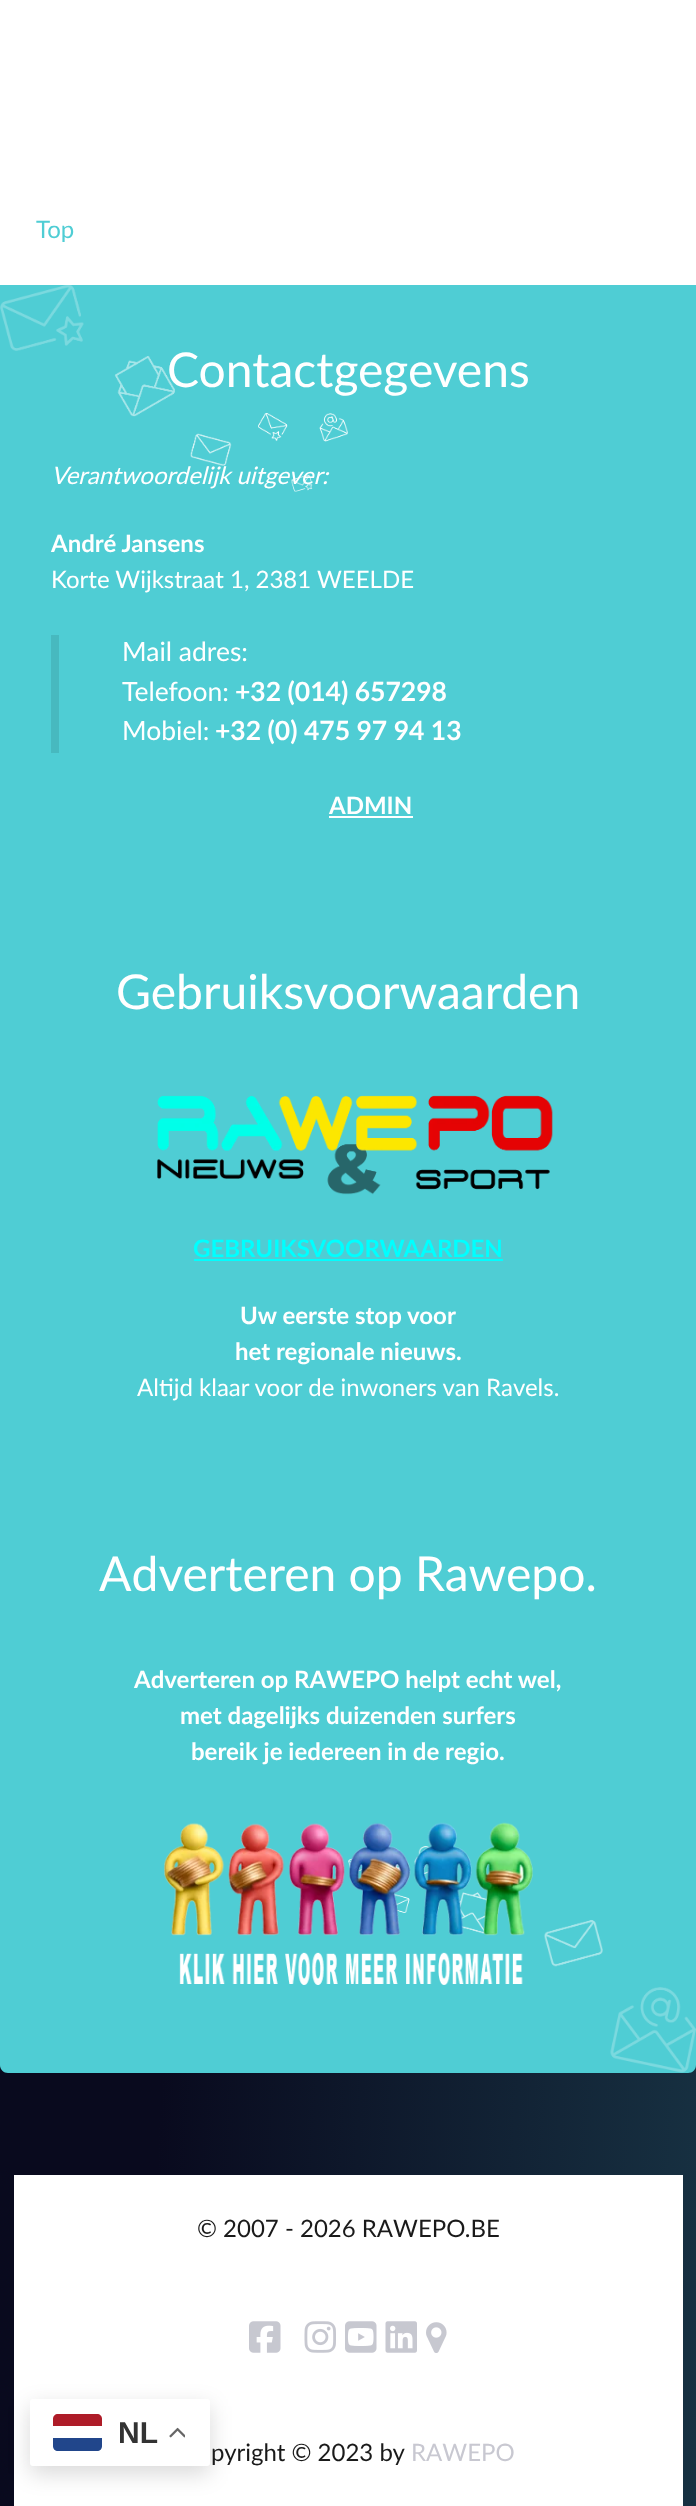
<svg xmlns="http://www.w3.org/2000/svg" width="696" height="2506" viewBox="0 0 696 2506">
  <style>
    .t1 { font: 24px Lato; fill: #4fcdd4; }
    .t2 { font: 48px Lato; fill: #fff; }
    .t3 { font: italic 24px Lato; fill: #fff; }
    .t4 { font: bold 24px Lato; fill: #fff; }
    .t5 { font: 24px Lato; fill: #fff; }
    .t6 { font: 26.5px Lato; fill: #fff; }
    .t7 { font: bold 26.5px Lato; fill: #fff; }
    .t8 { font: bold 24px Lato; fill: #0ff; }
    .t9 { font: bold 30px Liberation Sans; fill: #333; }
    .t10 { font: 24px Lato; fill: #1a1a1a; }
    .t11 { font: 24px Lato; fill: #c8c8d1; }
  </style>
  <defs>
    <linearGradient id="g1" gradientUnits="userSpaceOnUse" x1="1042" y1="-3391" x2="-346" y2="-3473"><stop offset="0" stop-color="#173142"/><stop offset="0.4" stop-color="#090a1e"/></linearGradient>
  </defs>
  <rect width="100%" height="100%" fill="#fff"/>
  <rect x="0" y="2065" width="696" height="441" fill="url(#g1)"/>
  <text x="36" y="238" class="t1">Top</text>
  <path d="M0 285H696V2065C696 2069.5 692.5 2073 688 2073H8C3.5 2073 0 2069.5 0 2065Z" fill="#4fcdd4"/>
  <image x="0" y="285" width="348" height="207" href="images/1.png"/>
  <text x="167" y="387" class="t2">Contactgegevens</text>
  <text x="51" y="484" class="t3">Verantwoordelijk uitgever:</text>
  <text x="51" y="552" class="t4">André Jansens</text>
  <text x="51" y="588" class="t5">Korte Wijkstraat 1, 2381 WEELDE</text>
  <rect x="51" y="635" width="8" height="118" fill="#47b9bf"/>
  <text x="122" y="661" class="t6">Mail adres:</text>
  <text x="122" y="701" class="t6">Telefoon:</text>
  <text x="235" y="701" class="t7">+32 (014) 657298</text>
  <text x="122" y="740" class="t6">Mobiel:</text>
  <text x="215" y="740" class="t7">+32 (0) 475 97 94 13</text>
  <text x="329" y="814" class="t4">ADMIN</text>
  <rect x="329" y="816" width="84" height="2" fill="#fff"/>
  <text x="116" y="1009" class="t2">Gebruiksvoorwaarden</text>
  <image x="157" y="1095" width="396" height="100" href="images/2.png"/>
  <text x="193" y="1257" class="t8">GEBRUIKSVOORWAARDEN</text>
  <rect x="194" y="1259" width="309" height="2" fill="#0ff"/>
  <text x="240" y="1324" class="t4">Uw eerste stop voor</text>
  <text x="235" y="1360" class="t4">het regionale nieuws.</text>
  <text x="137" y="1396" class="t5">Altijd klaar voor de inwoners van Ravels.</text>
  <text x="99" y="1591" class="t2">Adverteren op Rawepo.</text>
  <text x="134" y="1688" class="t4">Adverteren op RAWEPO helpt echt wel,</text>
  <text x="180" y="1724" class="t4">met dagelijks duizenden surfers</text>
  <text x="191" y="1760" class="t4">bereik je iedereen in de regio.</text>
  <image x="348" y="1846" width="348" height="227" href="images/4.png"/>
  <image x="164" y="1822" width="369" height="163" href="images/3.png"/>
  <rect x="14" y="2175" width="669" height="331" fill="#fff"/>
  <rect x="30" y="2406" width="180" height="68" rx="3" fill="#00000026" filter="blur(11px)"/>
  <rect x="30" y="2399" width="180" height="67" rx="3" fill="#fff"/>
  <path d="M53 2438H102V2446C102 2449 100 2451 97 2451H58C55 2451 53 2449 53 2446Z" fill="#21468b"/>
  <path d="M58 2414H97C100 2414 102 2416 102 2419V2426H53V2419C53 2416 55 2414 58 2414Z" fill="#ae1c28"/>
  <text x="118" y="2443" class="t9">NL</text>
  <image x="169" y="2427" width="16" height="11" href="images/5.png"/>
  <text x="197" y="2237" class="t10">© 2007 - 2026 RAWEPO.BE</text>
  <image x="249" y="2321" width="32" height="32" href="images/6.png"/>
  <image x="304" y="2321" width="32" height="32" href="images/7.png"/>
  <image x="345" y="2321" width="32" height="32" href="images/8.png"/>
  <image x="385" y="2321" width="32" height="32" href="images/9.png"/>
  <image x="426" y="2322" width="21" height="31" href="images/10.png"/>
  <text x="211" y="2461" class="t10">pyright © 2023 by</text>
  <text x="411" y="2461" class="t11">RAWEPO</text>
</svg>
